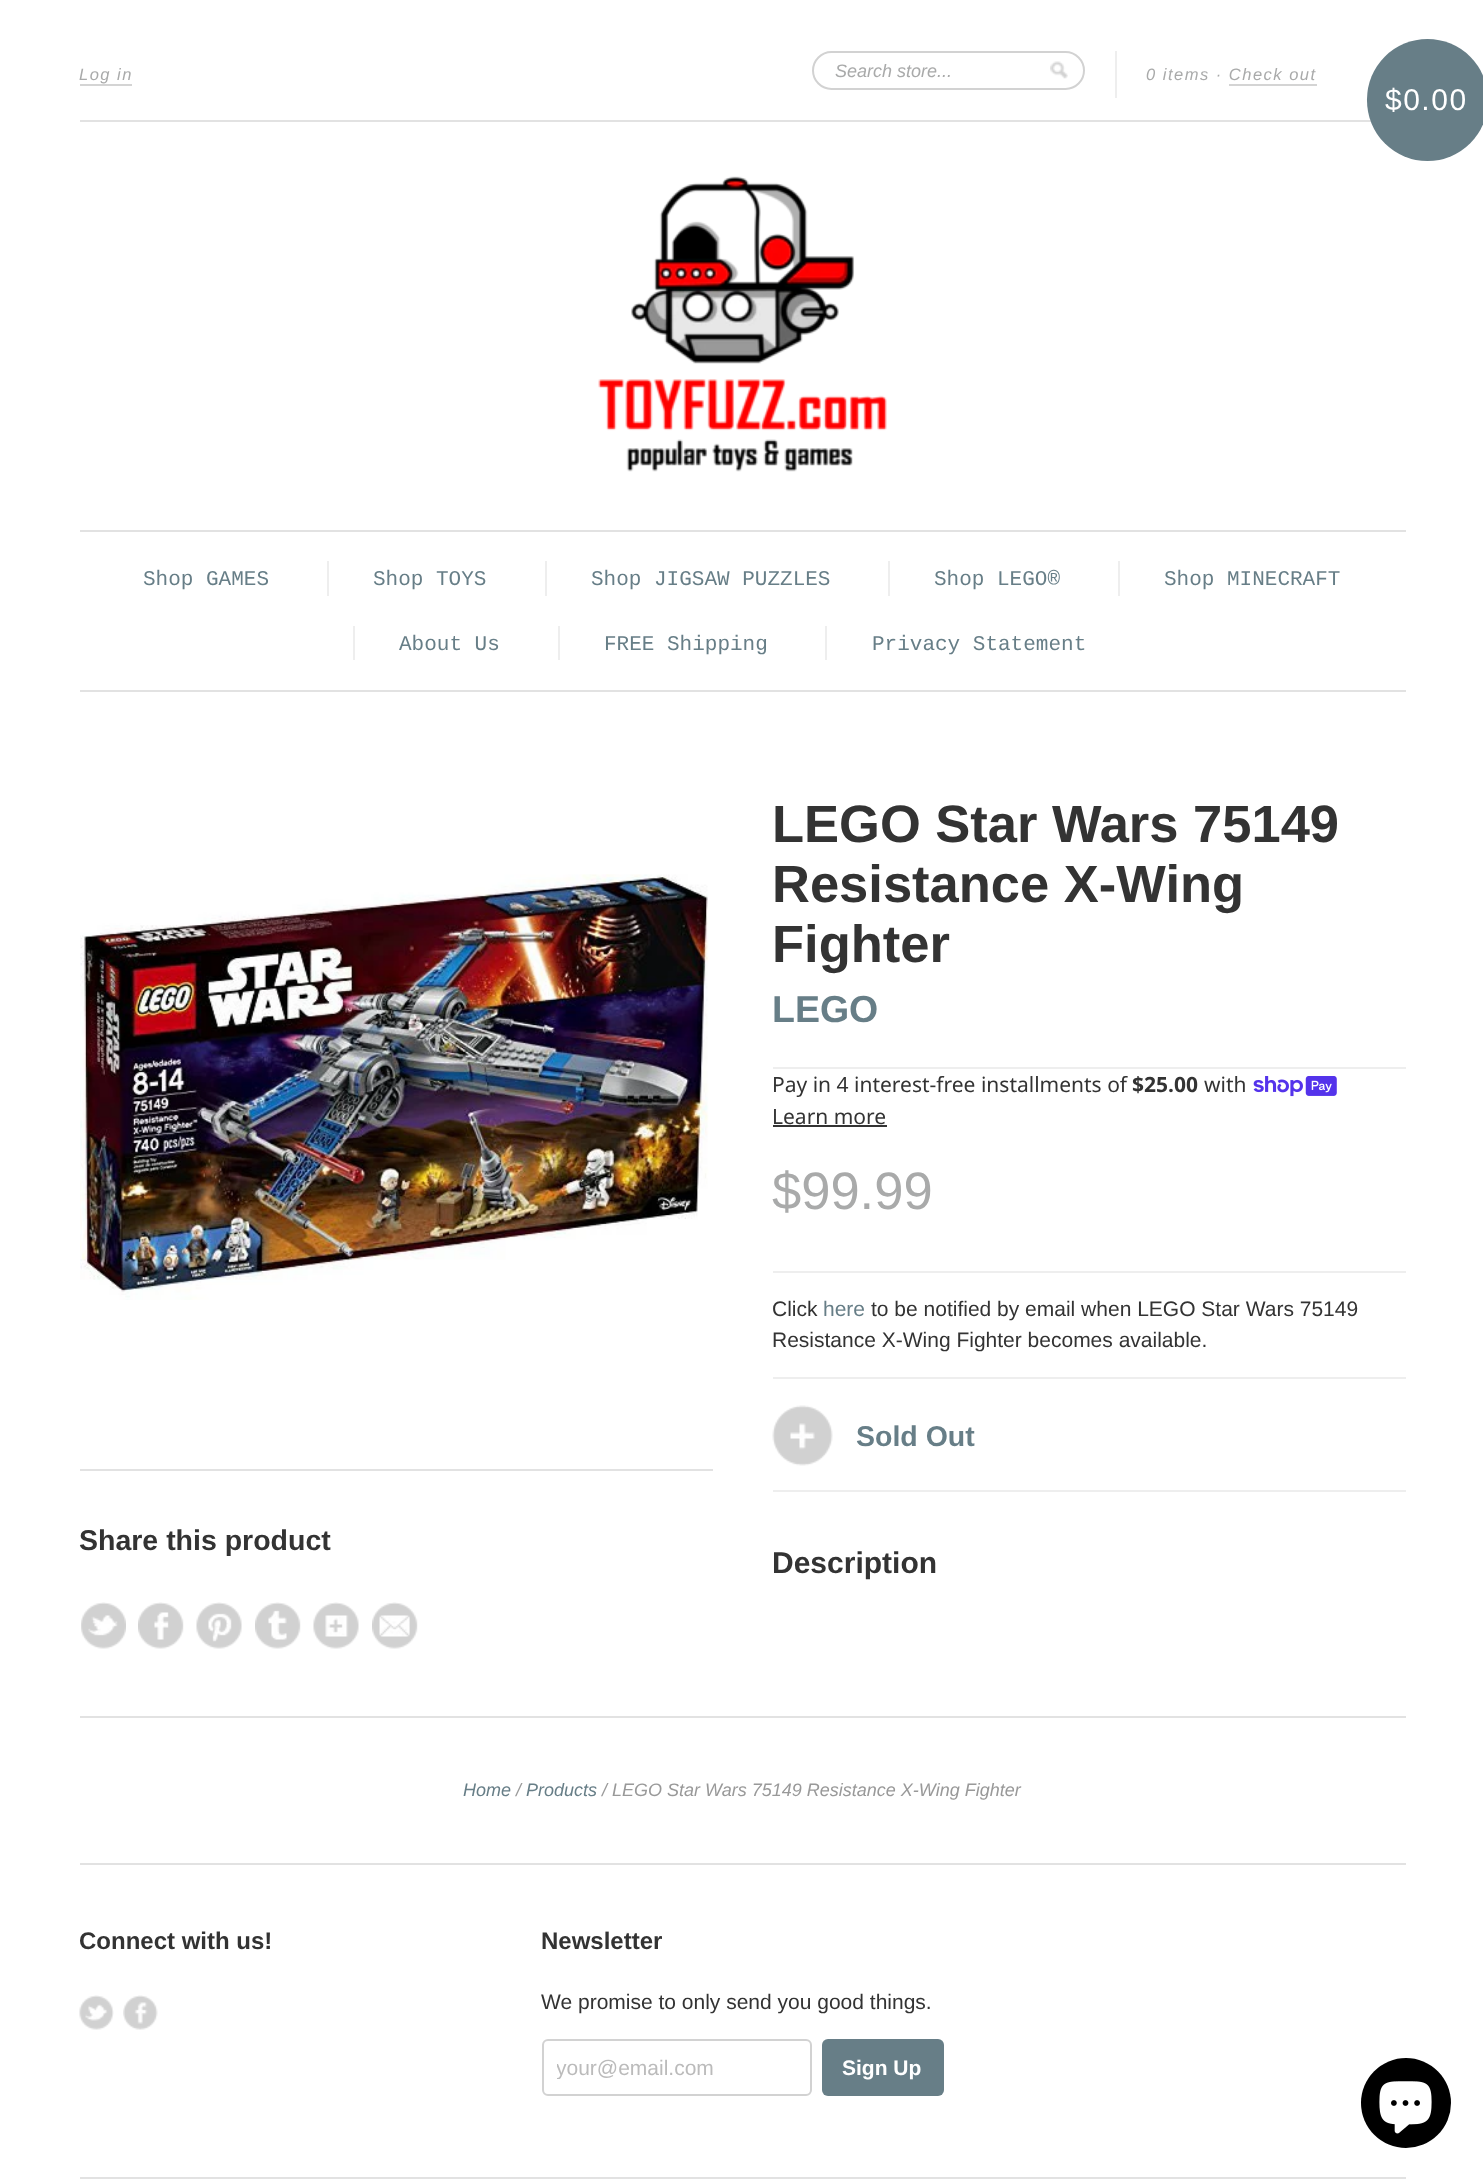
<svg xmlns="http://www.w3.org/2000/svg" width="1483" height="2179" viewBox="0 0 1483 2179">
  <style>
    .t1 { font: italic 16.5px Liberation Sans; letter-spacing: 1.5px; fill: #a9aaaa; }
    .t2 { font: italic 18px Liberation Sans; fill: #a9aaaa; }
    .t3 { font: 30px Liberation Sans; letter-spacing: 1.5px; fill: #fff; }
    .t4 { font: 21px Liberation Mono; fill: #677e87; }
    .t5 { font: bold 28.5px Liberation Sans; fill: #333; }
    .t6 { font: bold 52.5px Liberation Sans; fill: #333; }
    .t7 { font: bold 37.5px Liberation Sans; fill: #677e87; }
    .t8 { font: 21px Noto Sans; fill: #333; }
    .t9 { font: bold 21px Noto Sans; fill: #333; }
    .t10 { font: 52.5px Liberation Sans; fill: #a9aaaa; }
    .t11 { font: 21px Liberation Sans; fill: #333; }
    .t12 { font: 21px Liberation Sans; fill: #677e87; }
    .t13 { font: bold 28.5px Liberation Sans; fill: #677e87; }
    .t14 { font: bold 30px Liberation Sans; fill: #333; }
    .t15 { font: italic 18px Liberation Sans; fill: #677e87; }
    .t16 { font: italic 18px Liberation Sans; fill: #999; }
    .t17 { font: bold 24px Liberation Sans; fill: #333; }
    .t18 { font: 21px Liberation Sans; fill: #bbb; }
    .t19 { font: bold 21px Liberation Sans; fill: #fff; }
  </style>
  <defs>
    <clipPath id="clip1"><rect x="557" y="2055" width="240" height="24"/></clipPath>
  </defs>
  <rect width="100%" height="100%" fill="#fff"/>
  <rect x="80" y="690" width="1326" height="2" fill="#e2e2e2"/>
  <rect x="80" y="120" width="1291" height="2" fill="#e2e2e2"/>
  <text x="79" y="80" class="t1">Log in</text>
  <rect x="80" y="84" width="52" height="2" fill="#d4d4d4"/>
  <rect x="813" y="52" width="271" height="37" rx="18.5" fill="none" stroke="#d2d2d2" stroke-width="2"/>
  <text x="835" y="77" class="t2">Search store...</text>
  <image x="1050" y="61" width="18" height="18" href="images/1.png"/>
  <rect x="1115" y="51" width="2" height="47" fill="#eee"/>
  <text x="1146" y="80" class="t1">0 items · Check out</text>
  <rect x="1229" y="84" width="88" height="2" fill="#d4d4d4"/>
  <rect x="1367" y="39" width="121" height="122" rx="60.5" fill="#677e87"/>
  <text x="1385" y="110" class="t3">$0.00</text>
  <image x="598" y="176" width="289" height="296" href="images/2.png"/>
  <rect x="80" y="530" width="1326" height="2" fill="#e2e2e2"/>
  <text x="143" y="585" class="t4">Shop GAMES</text>
  <rect x="327" y="561" width="2" height="35" fill="#eee"/>
  <text x="373" y="585" class="t4">Shop TOYS</text>
  <rect x="545" y="561" width="2" height="35" fill="#eee"/>
  <text x="591" y="585" class="t4">Shop JIGSAW PUZZLES</text>
  <rect x="888" y="561" width="2" height="35" fill="#eee"/>
  <text x="934" y="585" class="t4">Shop LEGO®</text>
  <rect x="1118" y="561" width="2" height="35" fill="#eee"/>
  <text x="1164" y="585" class="t4">Shop MINECRAFT</text>
  <rect x="353" y="626" width="2" height="34" fill="#eee"/>
  <text x="399" y="650" class="t4">About Us</text>
  <rect x="558" y="626" width="2" height="34" fill="#eee"/>
  <text x="604" y="650" class="t4">FREE Shipping</text>
  <rect x="825" y="626" width="2" height="34" fill="#eee"/>
  <text x="872" y="650" class="t4">Privacy Statement</text>
  <rect x="80" y="1716" width="1326" height="2" fill="#e2e2e2"/>
  <image x="80" y="874" width="629" height="426" href="images/3.png"/>
  <rect x="80" y="1469" width="633" height="2" fill="#e2e2e2"/>
  <text x="79" y="1550" class="t5">Share this product</text>
  <image x="81" y="1602" width="45" height="47" href="images/4.png"/>
  <image x="138" y="1602" width="46" height="47" href="images/5.png"/>
  <image x="196" y="1602" width="46" height="47" href="images/6.png"/>
  <image x="255" y="1602" width="46" height="47" href="images/7.png"/>
  <image x="313" y="1602" width="46" height="47" href="images/8.png"/>
  <image x="372" y="1602" width="46" height="47" href="images/9.png"/>
  <rect x="773" y="1067" width="633" height="2" fill="#eee"/>
  <text x="772" y="842" class="t6">LEGO Star Wars 75149</text>
  <text x="772" y="902" class="t6">Resistance X-Wing</text>
  <text x="772" y="962" class="t6">Fighter</text>
  <text x="772" y="1022" class="t7">LEGO</text>
  <text x="772" y="1092" class="t8">Pay in 4 interest-free installments of</text>
  <text x="1132" y="1092" class="t9">$25.00</text>
  <text x="1204" y="1092" class="t8">with</text>
  <image x="1253" y="1076" width="84" height="21" href="images/10.png"/>
  <text x="772" y="1124" class="t8">Learn more</text>
  <rect x="773" y="1125" width="114" height="2" fill="#333"/>
  <rect x="773" y="1271" width="633" height="2" fill="#eee"/>
  <text x="772" y="1209" class="t10">$99.99</text>
  <rect x="773" y="1377" width="633" height="2" fill="#eee"/>
  <text x="772" y="1316" class="t11">Click</text>
  <text x="823" y="1316" class="t12">here</text>
  <text x="871" y="1316" class="t11">to be notified by email when LEGO Star Wars 75149</text>
  <text x="772" y="1347" class="t11">Resistance X-Wing Fighter becomes available.</text>
  <rect x="773" y="1490" width="633" height="2" fill="#eee"/>
  <image x="772" y="1405" width="61" height="61" href="images/11.png"/>
  <text x="856" y="1446" class="t13">Sold Out</text>
  <text x="772" y="1573" class="t14">Description</text>
  <text x="463" y="1796" class="t15">Home</text>
  <text x="516" y="1796" class="t16">/</text>
  <text x="526" y="1796" class="t15">Products</text>
  <text x="602" y="1796" class="t16">/ LEGO Star Wars 75149 Resistance X-Wing Fighter</text>
  <rect x="80" y="1863" width="1326" height="2" fill="#e2e2e2"/>
  <text x="79" y="1949" class="t17">Connect with us!</text>
  <image x="79" y="1995" width="35" height="35" href="images/12.png"/>
  <image x="123" y="1995" width="35" height="35" href="images/13.png"/>
  <text x="541" y="1949" class="t17">Newsletter</text>
  <text x="541" y="2009" class="t11">We promise to only send you good things.</text>
  <rect x="543" y="2040" width="268" height="55" rx="5" fill="none" stroke="#d2d2d2" stroke-width="2"/>
  <g clip-path="url(#clip1)">
    <text x="556" y="2075" class="t18">your@email.com</text>
  </g>
  <rect x="822" y="2039" width="122" height="57" rx="6" fill="#677e87"/>
  <text x="842" y="2075" class="t19">Sign Up</text>
  <circle cx="1406" cy="2103" r="45" fill="#000"/>
  <image x="1379" y="2081" width="53" height="53" href="images/14.png"/>
  <rect x="80" y="2177" width="1326" height="2" fill="#e2e2e2"/>
</svg>
